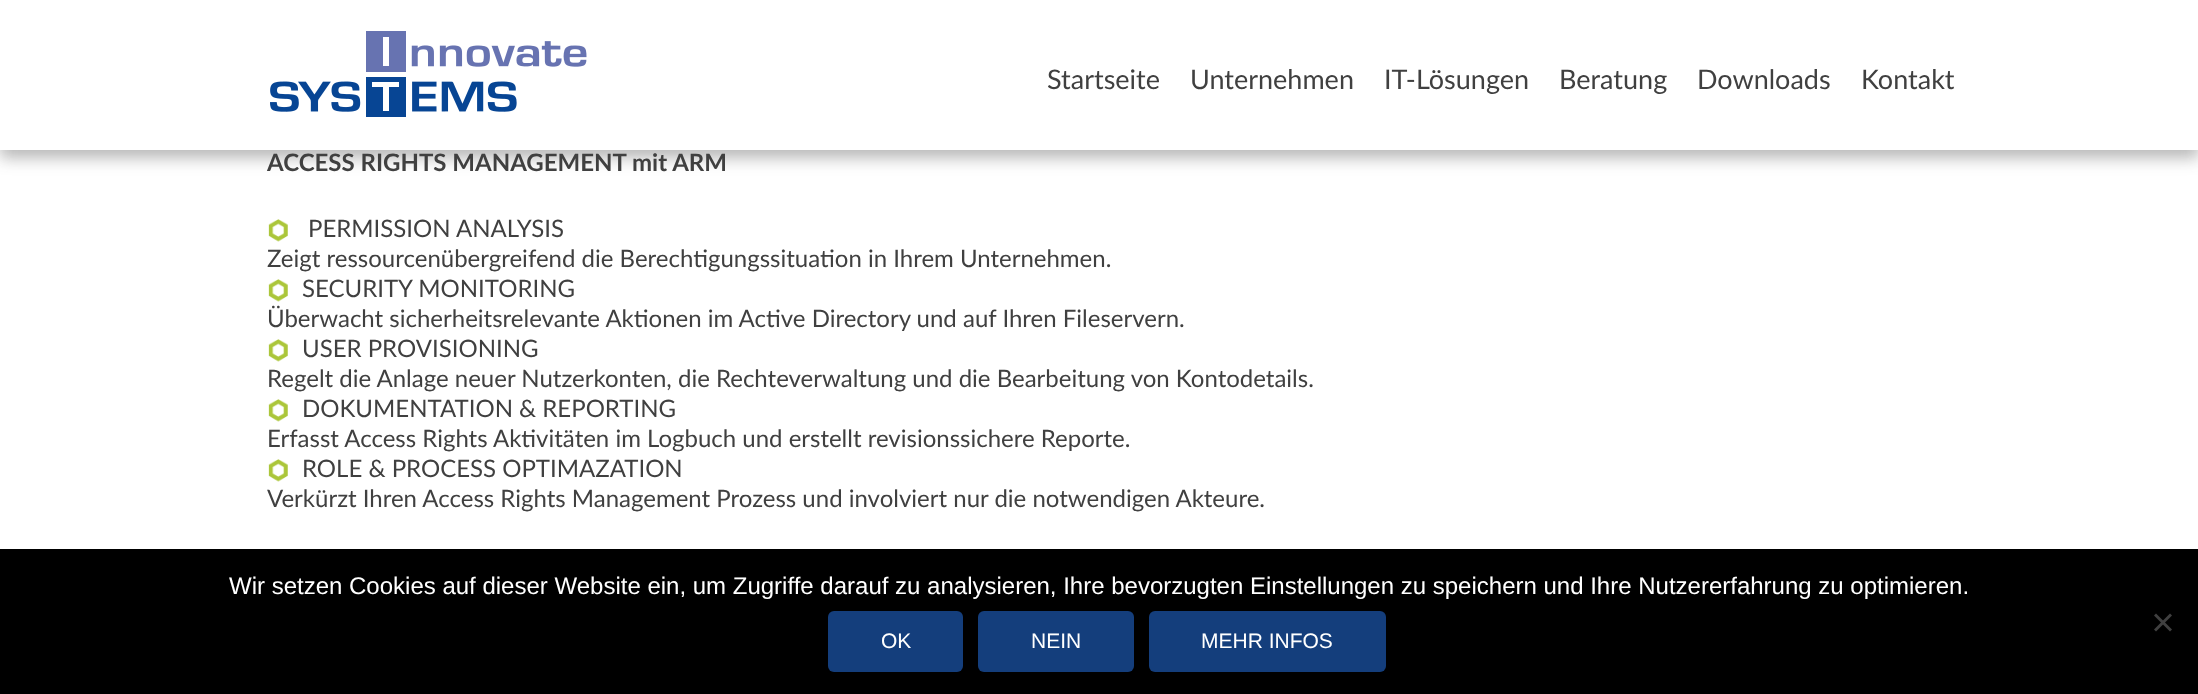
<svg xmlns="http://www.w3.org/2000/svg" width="2198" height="694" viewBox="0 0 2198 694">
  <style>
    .t1 { font: 27px Lato; fill: #404040; }
    .t2 { font: bold 24px Lato; fill: #404040; }
    .t3 { font: 24px Lato; fill: #404040; }
    .t4 { font: 24px Liberation Sans; fill: #fff; }
    .t5 { font: 21px Liberation Sans; fill: #fff; }
  </style>
  <rect width="100%" height="100%" fill="#fff"/>
  <rect x="0" y="8" width="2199" height="150" fill="#32323259" filter="blur(8px)"/>
  <rect x="0" y="0" width="2198" height="150" fill="#fff"/>
  <image x="270" y="31" width="317" height="86" href="images/1.png"/>
  <text x="1047" y="89" class="t1">Startseite</text>
  <text x="1190" y="89" class="t1">Unternehmen</text>
  <text x="1384" y="89" class="t1">IT-Lösungen</text>
  <text x="1559" y="89" class="t1">Beratung</text>
  <text x="1697" y="89" class="t1">Downloads</text>
  <text x="1861" y="89" class="t1">Kontakt</text>
  <text x="267" y="171" class="t2">ACCESS RIGHTS MANAGEMENT mit ARM</text>
  <image x="268" y="219" width="20" height="23" href="images/2.png"/>
  <text x="308" y="237" class="t3">PERMISSION ANALYSIS</text>
  <text x="267" y="267" class="t3">Zeigt ressourcenübergreifend die Berechtigungssituation in Ihrem Unternehmen.</text>
  <image x="268" y="279" width="20" height="23" href="images/2.png"/>
  <text x="302" y="297" class="t3">SECURITY MONITORING</text>
  <text x="267" y="327" class="t3">Überwacht sicherheitsrelevante Aktionen im Active Directory und auf Ihren Fileservern.</text>
  <image x="268" y="339" width="20" height="23" href="images/2.png"/>
  <text x="302" y="357" class="t3">USER PROVISIONING</text>
  <text x="267" y="387" class="t3">Regelt die Anlage neuer Nutzerkonten, die Rechteverwaltung und die Bearbeitung von Kontodetails.</text>
  <image x="268" y="399" width="20" height="23" href="images/2.png"/>
  <text x="302" y="417" class="t3">DOKUMENTATION &amp; REPORTING</text>
  <text x="267" y="447" class="t3">Erfasst Access Rights Aktivitäten im Logbuch und erstellt revisionssichere Reporte.</text>
  <image x="268" y="459" width="20" height="23" href="images/3.png"/>
  <text x="302" y="477" class="t3">ROLE &amp; PROCESS OPTIMAZATION</text>
  <text x="267" y="507" class="t3">Verkürzt Ihren Access Rights Management Prozess und involviert nur die notwendigen Akteure.</text>
  <rect x="0" y="549" width="2198" height="145" fill="#000"/>
  <text x="229" y="594" class="t4">Wir setzen Cookies auf dieser Website ein, um Zugriffe darauf zu analysieren, Ihre bevorzugten Einstellungen zu speichern und Ihre Nutzererfahrung zu optimieren.</text>
  <path d="M2170 613.5L2172 615.5L2156 631.5L2154 629.5Z" fill="#404040"/>
  <path d="M2154 615.5L2156 613.5L2172 629.5L2170 631.5Z" fill="#404040"/>
  <rect x="828" y="611" width="135" height="61" rx="6" fill="#143e7c"/>
  <text x="881" y="648" class="t5">OK</text>
  <rect x="978" y="611" width="156" height="61" rx="6" fill="#143e7c"/>
  <text x="1031" y="648" class="t5">NEIN</text>
  <rect x="1149" y="611" width="237" height="61" rx="6" fill="#143e7c"/>
  <text x="1201" y="648" class="t5">MEHR INFOS</text>
</svg>
